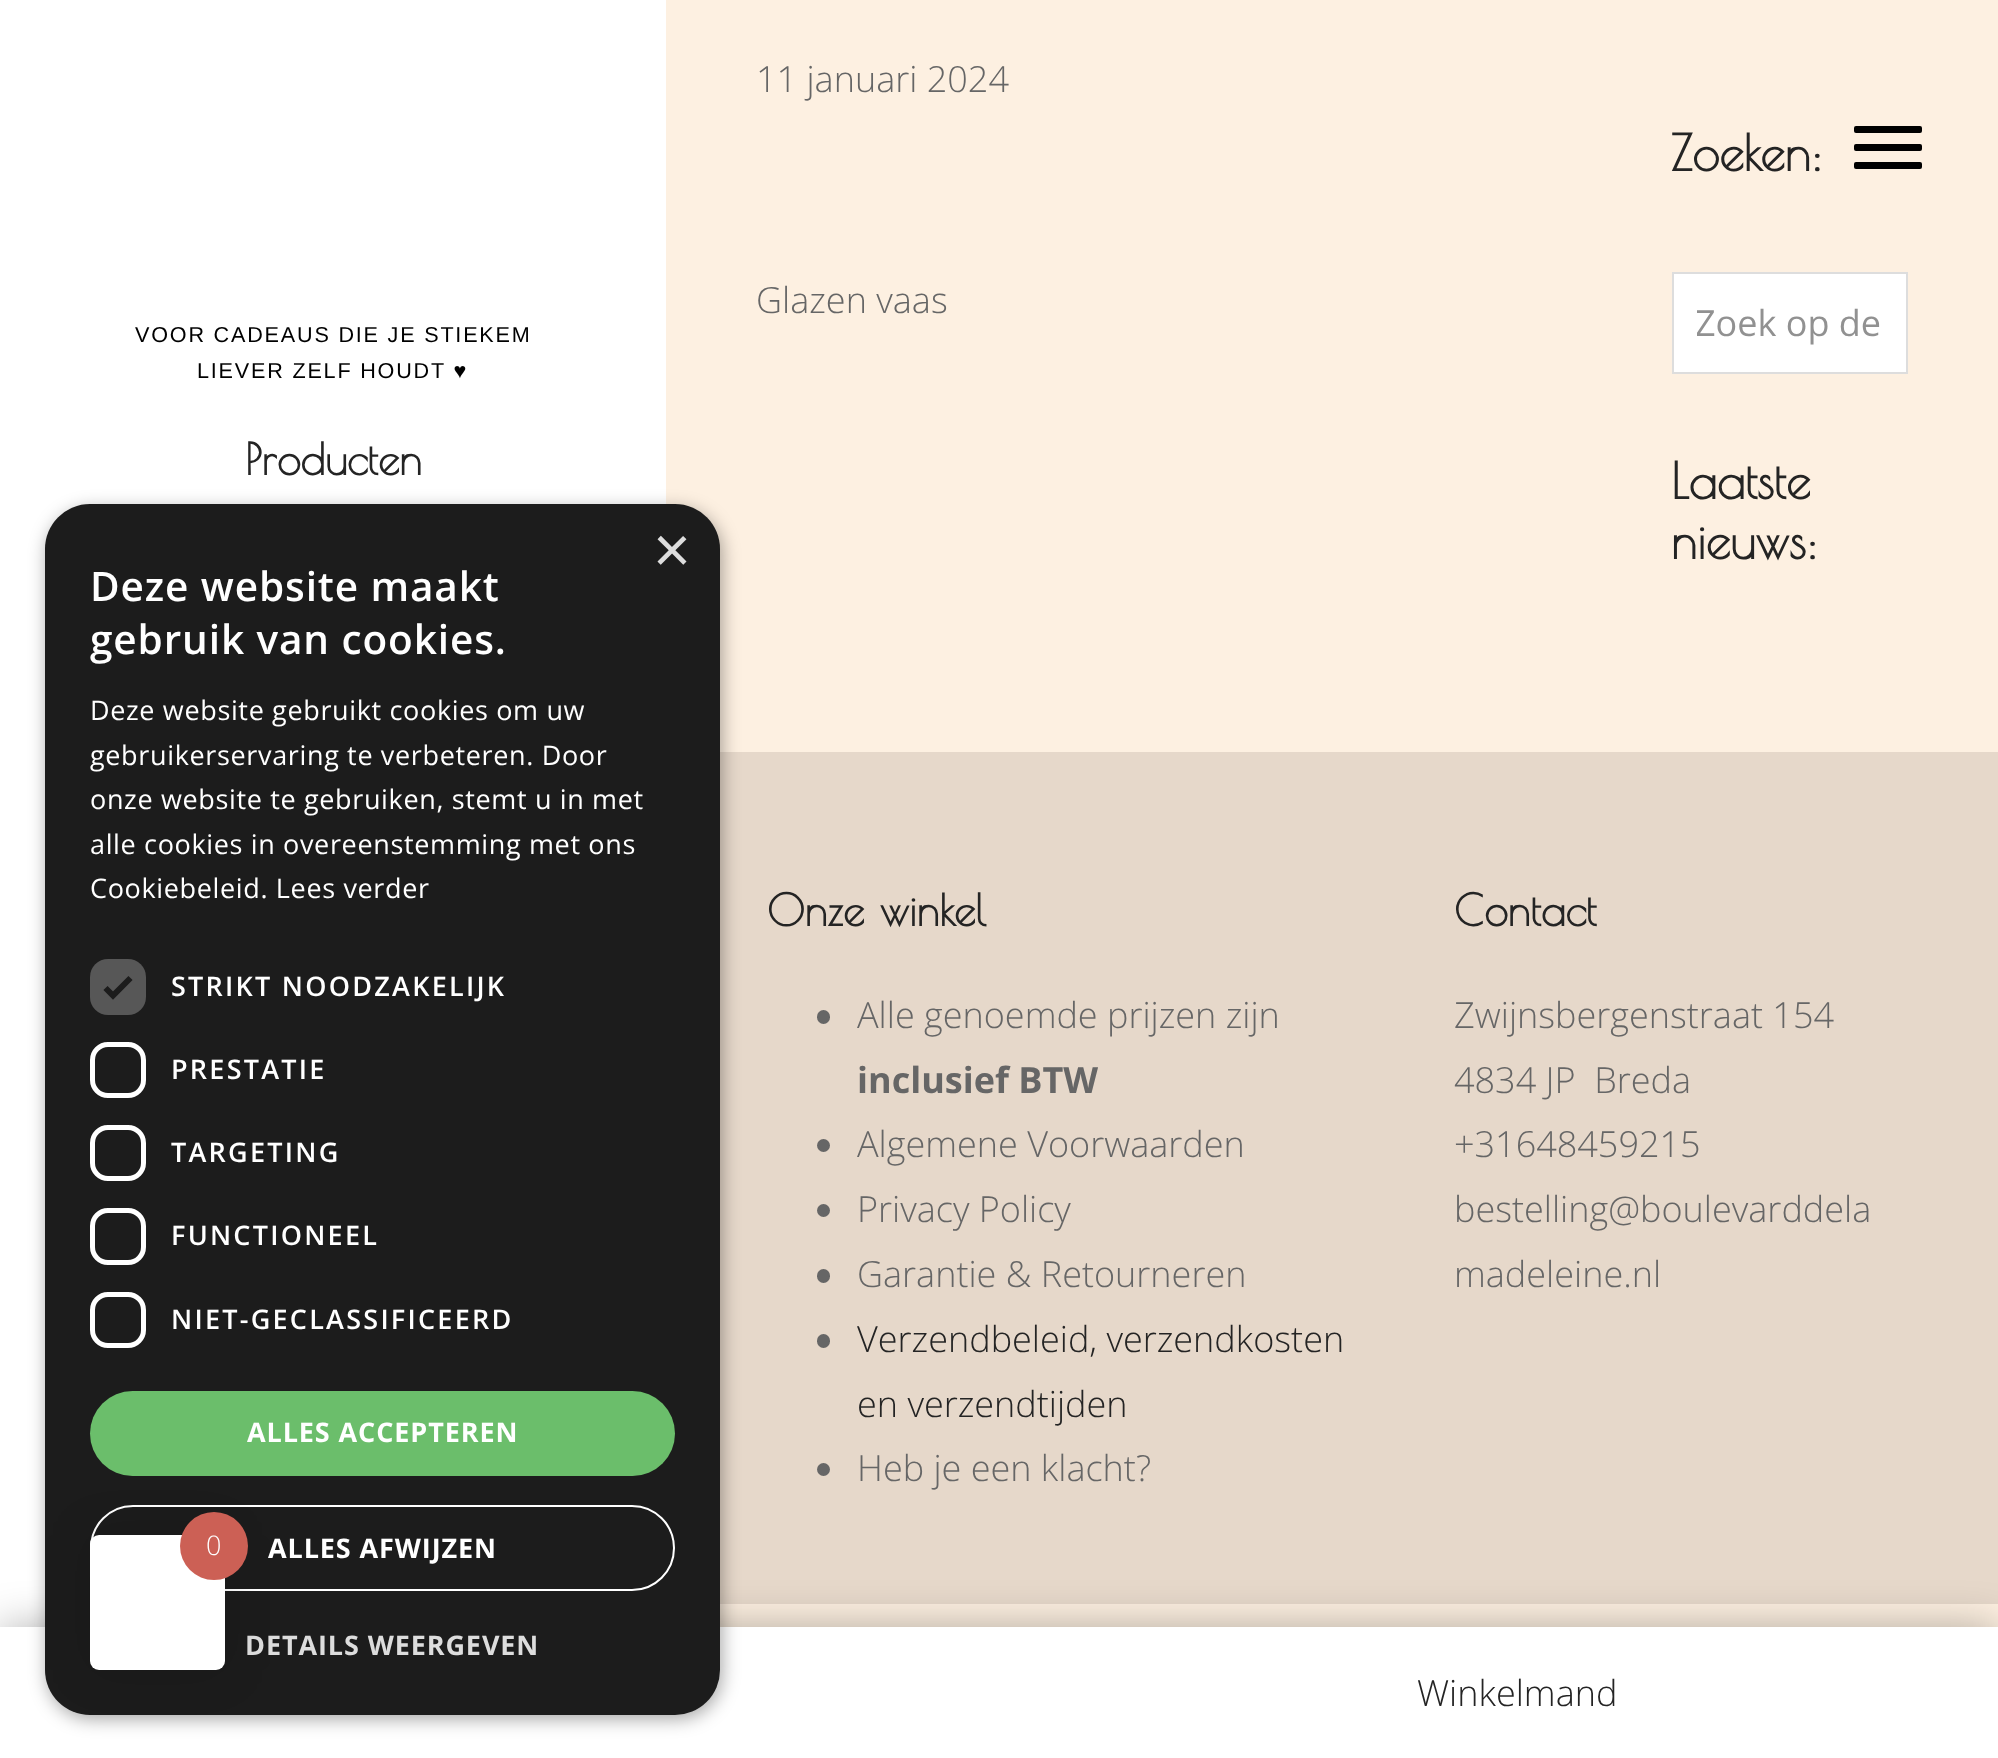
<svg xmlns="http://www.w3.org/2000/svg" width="1998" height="1758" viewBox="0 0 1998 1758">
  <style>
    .t1 { font: 21.6px Liberation Sans; letter-spacing: 1.8px; fill: #000; }
    .t2 { font: bold 43.25px Poiret One; fill: #242424; }
    .t3 { font: 300 36px Open Sans; fill: #666; }
    .t4 { font: bold 49.5px Poiret One; fill: #242424; }
    .t5 { font: 36px Open Sans; fill: #919191; }
    .t6 { font: bold 36px Open Sans; fill: #666; }
    .t7 { font: 300 36px Open Sans; fill: #242424; }
    .t8 { font: 65px Liberation Sans; fill: #ddd; }
    .t9 { font: 600 40.5px Open Sans; letter-spacing: 0.9px; fill: #fff; }
    .t10 { font: 27px Open Sans; letter-spacing: 0.65px; fill: #fff; }
    .t11 { font: 600 27px Open Sans; letter-spacing: 2.25px; fill: #fff; }
    .t12 { font: bold 27px Open Sans; letter-spacing: 0.9px; fill: #fff; }
    .t13 { font: bold 27px Open Sans; letter-spacing: 0.9px; fill: #ddd; }
    .t14 { font: 300 27px Open Sans; fill: #fff; }
  </style>
  <defs>
    <clipPath id="clip1"><rect x="1697" y="297" width="186" height="50"/></clipPath>
  </defs>
  <rect width="100%" height="100%" fill="#fff"/>
  <text x="135" y="342" class="t1">VOOR CADEAUS DIE JE STIEKEM</text>
  <text x="197" y="378" class="t1">LIEVER ZELF HOUDT ♥</text>
  <text x="245" y="475" class="t2">Producten</text>
  <rect x="666" y="0" width="1332" height="1627" fill="#fdf0e1"/>
  <text x="756" y="92" class="t3">11 januari 2024</text>
  <text x="756" y="313" class="t3">Glazen vaas</text>
  <text x="1671" y="171" class="t4">Zoeken:</text>
  <rect x="1673" y="273" width="234" height="100" fill="#fff" stroke="#ddd" stroke-width="2"/>
  <g clip-path="url(#clip1)">
    <text x="1695" y="336" class="t5">Zoek op de</text>
  </g>
  <text x="1671" y="499" class="t4">Laatste</text>
  <text x="1671" y="559" class="t4">nieuws:</text>
  <rect x="720" y="752" width="1278" height="852" fill="#e6d8ca"/>
  <text x="767" y="926" class="t2">Onze winkel</text>
  <rect x="817" y="1010" width="13" height="14" rx="6.5" fill="#666"/>
  <text x="857" y="1028" class="t3">Alle genoemde prijzen zijn</text>
  <text x="857" y="1093" class="t6">inclusief BTW</text>
  <circle cx="823.5" cy="1145.5" r="6.5" fill="#666"/>
  <text x="857" y="1157" class="t3">Algemene Voorwaarden</text>
  <circle cx="823.5" cy="1210.5" r="6.5" fill="#666"/>
  <text x="857" y="1222" class="t3">Privacy Policy</text>
  <rect x="817" y="1269" width="13" height="14" rx="6.5" fill="#666"/>
  <text x="857" y="1287" class="t3">Garantie &amp; Retourneren</text>
  <rect x="817" y="1334" width="13" height="14" rx="6.5" fill="#666"/>
  <text x="857" y="1352" class="t7">Verzendbeleid, verzendkosten</text>
  <text x="857" y="1417" class="t7">en verzendtijden</text>
  <circle cx="823.5" cy="1469.5" r="6.5" fill="#666"/>
  <text x="857" y="1481" class="t3">Heb je een klacht?</text>
  <text x="1454" y="926" class="t2">Contact</text>
  <text x="1454" y="1028" class="t3">Zwijnsbergenstraat 154</text>
  <text x="1454" y="1093" class="t3" xml:space="preserve">4834 JP  Breda</text>
  <text x="1454" y="1157" class="t3">+31648459215</text>
  <text x="1454" y="1222" class="t3">bestelling@boulevarddela</text>
  <text x="1454" y="1287" class="t3">madeleine.nl</text>
  <rect x="1854" y="126" width="68" height="7" rx="2" fill="#000"/>
  <rect x="1854" y="144" width="68" height="7" rx="2" fill="#000"/>
  <rect x="1854" y="162" width="68" height="7" rx="2" fill="#000"/>
  <rect x="0" y="1627" width="1998" height="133" fill="#0000004d" filter="blur(21.5px)"/>
  <rect x="0" y="1627" width="1998" height="131" fill="#fff"/>
  <text x="1417" y="1706" class="t7">Winkelmand</text>
  <rect x="47" y="509" width="675" height="1210" rx="45" fill="#00000059" filter="blur(9px)"/>
  <rect x="45" y="504" width="675" height="1211" rx="45" fill="#1c1c1c"/>
  <text x="653" y="572" class="t8">×</text>
  <text x="90" y="601" class="t9">Deze website maakt</text>
  <text x="90" y="654" class="t9">gebruik van cookies.</text>
  <text x="90" y="720" class="t10">Deze website gebruikt cookies om uw</text>
  <text x="90" y="765" class="t10">gebruikerservaring te verbeteren. Door</text>
  <text x="90" y="809" class="t10">onze website te gebruiken, stemt u in met</text>
  <text x="90" y="854" class="t10">alle cookies in overeenstemming met ons</text>
  <text x="90" y="898" class="t10">Cookiebeleid. Lees verder</text>
  <rect x="90" y="959" width="56" height="56" rx="18" fill="#575757"/>
  <path d="M105.5 988L113 995.5L130.5 978" fill="none" stroke="#1c1c1c" stroke-width="5.9"/>
  <text x="171" y="996" class="t11">STRIKT NOODZAKELIJK</text>
  <rect x="92.5" y="1044.5" width="51" height="51" rx="15.5" fill="none" stroke="#fff" stroke-width="5"/>
  <text x="171" y="1079" class="t11">PRESTATIE</text>
  <rect x="92.5" y="1127.5" width="51" height="51" rx="15.5" fill="none" stroke="#fff" stroke-width="5"/>
  <text x="171" y="1162" class="t11">TARGETING</text>
  <rect x="92.5" y="1210.5" width="51" height="52" rx="15.5" fill="none" stroke="#fff" stroke-width="5"/>
  <text x="171" y="1245" class="t11">FUNCTIONEEL</text>
  <rect x="92.5" y="1294.5" width="51" height="51" rx="15.5" fill="none" stroke="#fff" stroke-width="5"/>
  <text x="171" y="1329" class="t11">NIET-GECLASSIFICEERD</text>
  <rect x="90" y="1391" width="585" height="85" rx="42.5" fill="#6bbe6b"/>
  <text x="247" y="1442" class="t12">ALLES ACCEPTEREN</text>
  <rect x="91" y="1506" width="583" height="84" rx="42" fill="none" stroke="#fff" stroke-width="2"/>
  <text x="268" y="1558" class="t12">ALLES AFWIJZEN</text>
  <text x="245" y="1655" class="t13">DETAILS WEERGEVEN</text>
  <rect x="90" y="1535" width="135" height="135" rx="9" fill="#00000026" filter="blur(22.5px)"/>
  <rect x="90" y="1535" width="135" height="135" rx="9" fill="#fff"/>
  <circle cx="214" cy="1546" r="34" fill="#cc6055"/>
  <text x="206" y="1555" class="t14">0</text>
</svg>
